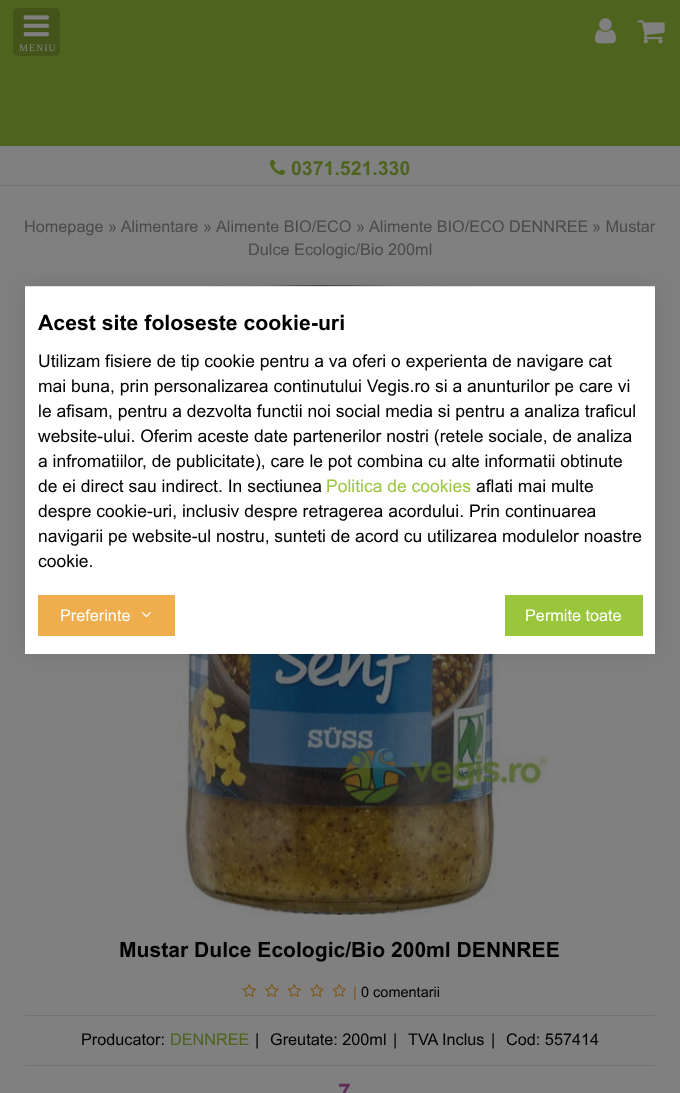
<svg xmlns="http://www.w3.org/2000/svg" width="680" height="1093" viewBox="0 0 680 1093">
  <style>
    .t1 { font: 10px Liberation Serif; letter-spacing: 1px; fill: #808080; }
    .t2 { font: bold 19.5px Arial; fill: #4d631e; }
    .t3 { font: 16.25px Arial; fill: #4a4a4a; }
    .t4 { font: bold 21.1px Arial; fill: #000; }
    .t5 { font: 14.5px Arial; fill: #7e5714; }
    .t6 { font: 14.5px Arial; fill: #000; }
    .t7 { font: 16.25px Arial; fill: #000; }
    .t8 { font: 16.25px Arial; fill: #4d631e; }
    .t9 { font: bold 23px Arial; fill: #5f2e57; }
    .t10 { font: bold 21.25px Arial; fill: #000; }
    .t11 { font: 17.5px Arial; fill: #000; }
    .t12 { font: 17.5px Arial; fill: #9ac63c; }
    .t13 { font: 16.25px Arial; fill: #fff; }
  </style>
  <rect width="100%" height="100%" fill="#808080"/>
  <rect x="0" y="0" width="680" height="146" fill="#4d631e"/>
  <image x="595" y="18" width="21" height="26" href="images/1.png"/>
  <image x="637" y="20" width="28" height="24" href="images/2.png"/>
  <rect x="13" y="8" width="47" height="48" rx="5" fill="#42541a"/>
  <image x="23" y="15" width="26" height="22" href="images/3.png"/>
  <text x="19" y="51" class="t1">MENIU</text>
  <rect x="0" y="185" width="680" height="1" fill="#727272"/>
  <image x="270" y="159" width="16" height="16" href="images/4.png"/>
  <text x="291" y="175" class="t2">0371.521.330</text>
  <text x="24" y="232" class="t3">Homepage » Alimentare</text>
  <text x="203" y="232" class="t3">»</text>
  <text x="216" y="232" class="t3">Alimente BIO/ECO</text>
  <text x="356" y="232" class="t3">»</text>
  <text x="369" y="232" class="t3">Alimente BIO/ECO DENNREE</text>
  <text x="592" y="232" class="t3">» Mustar</text>
  <text x="248" y="255" class="t3">Dulce Ecologic/Bio 200ml</text>
  <image x="176" y="285" width="375" height="630" href="images/5.png"/>
  <text x="119" y="957" class="t4">Mustar Dulce Ecologic/Bio 200ml DENNREE</text>
  <image x="242" y="984" width="14" height="13" href="images/6.png"/>
  <image x="265" y="984" width="14" height="13" href="images/7.png"/>
  <image x="287" y="984" width="14" height="13" href="images/6.png"/>
  <image x="310" y="984" width="14" height="13" href="images/7.png"/>
  <image x="332" y="984" width="14" height="13" href="images/6.png"/>
  <text x="353" y="997" class="t5">|</text>
  <text x="361" y="997" class="t6">0 comentarii</text>
  <rect x="25" y="1015" width="630" height="1" fill="#737373"/>
  <text x="81" y="1045" class="t7">Producator:</text>
  <text x="170" y="1045" class="t8">DENNREE</text>
  <text x="255" y="1045" class="t7">|</text>
  <text x="270" y="1045" class="t7">Greutate: 200ml</text>
  <text x="393" y="1045" class="t7">|</text>
  <text x="408" y="1045" class="t7">TVA Inclus</text>
  <text x="491" y="1045" class="t7">|</text>
  <text x="506" y="1045" class="t7">Cod: 557414</text>
  <rect x="25" y="1065" width="630" height="1" fill="#737373"/>
  <text x="338" y="1100" class="t9">7</text>
  <rect x="25" y="285" width="630" height="368" fill="#0000001a" filter="blur(9.5px)"/>
  <rect x="25" y="287" width="630" height="367" fill="#fff"/>
  <rect x="25" y="286" width="630" height="1" fill="#ddd"/>
  <text x="38" y="330" class="t10">Acest site foloseste cookie-uri</text>
  <text x="38" y="367" class="t11">Utilizam fisiere de tip cookie pentru a va oferi o experienta de navigare cat</text>
  <text x="38" y="392" class="t11">mai buna, prin personalizarea continutului Vegis.ro si a anunturilor pe care vi</text>
  <text x="38" y="417" class="t11">le afisam, pentru a dezvolta functii noi social media si pentru a analiza traficul</text>
  <text x="38" y="442" class="t11">website-ului. Oferim aceste date partenerilor nostri (retele sociale, de analiza</text>
  <text x="38" y="467" class="t11">a infromatiilor, de publicitate), care le pot combina cu alte informatii obtinute</text>
  <text x="38" y="492" class="t11">de ei direct sau indirect. In sectiunea</text>
  <text x="326" y="492" class="t12">Politica de cookies</text>
  <text x="476" y="492" class="t11">aflati mai multe</text>
  <text x="38" y="517" class="t11">despre cookie-uri, inclusiv despre retragerea acordului. Prin continuarea</text>
  <text x="38" y="542" class="t11">navigarii pe website-ul nostru, sunteti de acord cu utilizarea modulelor noastre</text>
  <text x="38" y="567" class="t11">cookie.</text>
  <rect x="38" y="595" width="137" height="41" fill="#f0ad4e"/>
  <text x="60" y="621" class="t13">Preferinte</text>
  <image x="142" y="612" width="9" height="6" href="images/8.png"/>
  <rect x="505" y="595" width="138" height="41" fill="#9ac63c"/>
  <text x="525" y="621" class="t13">Permite toate</text>
</svg>
